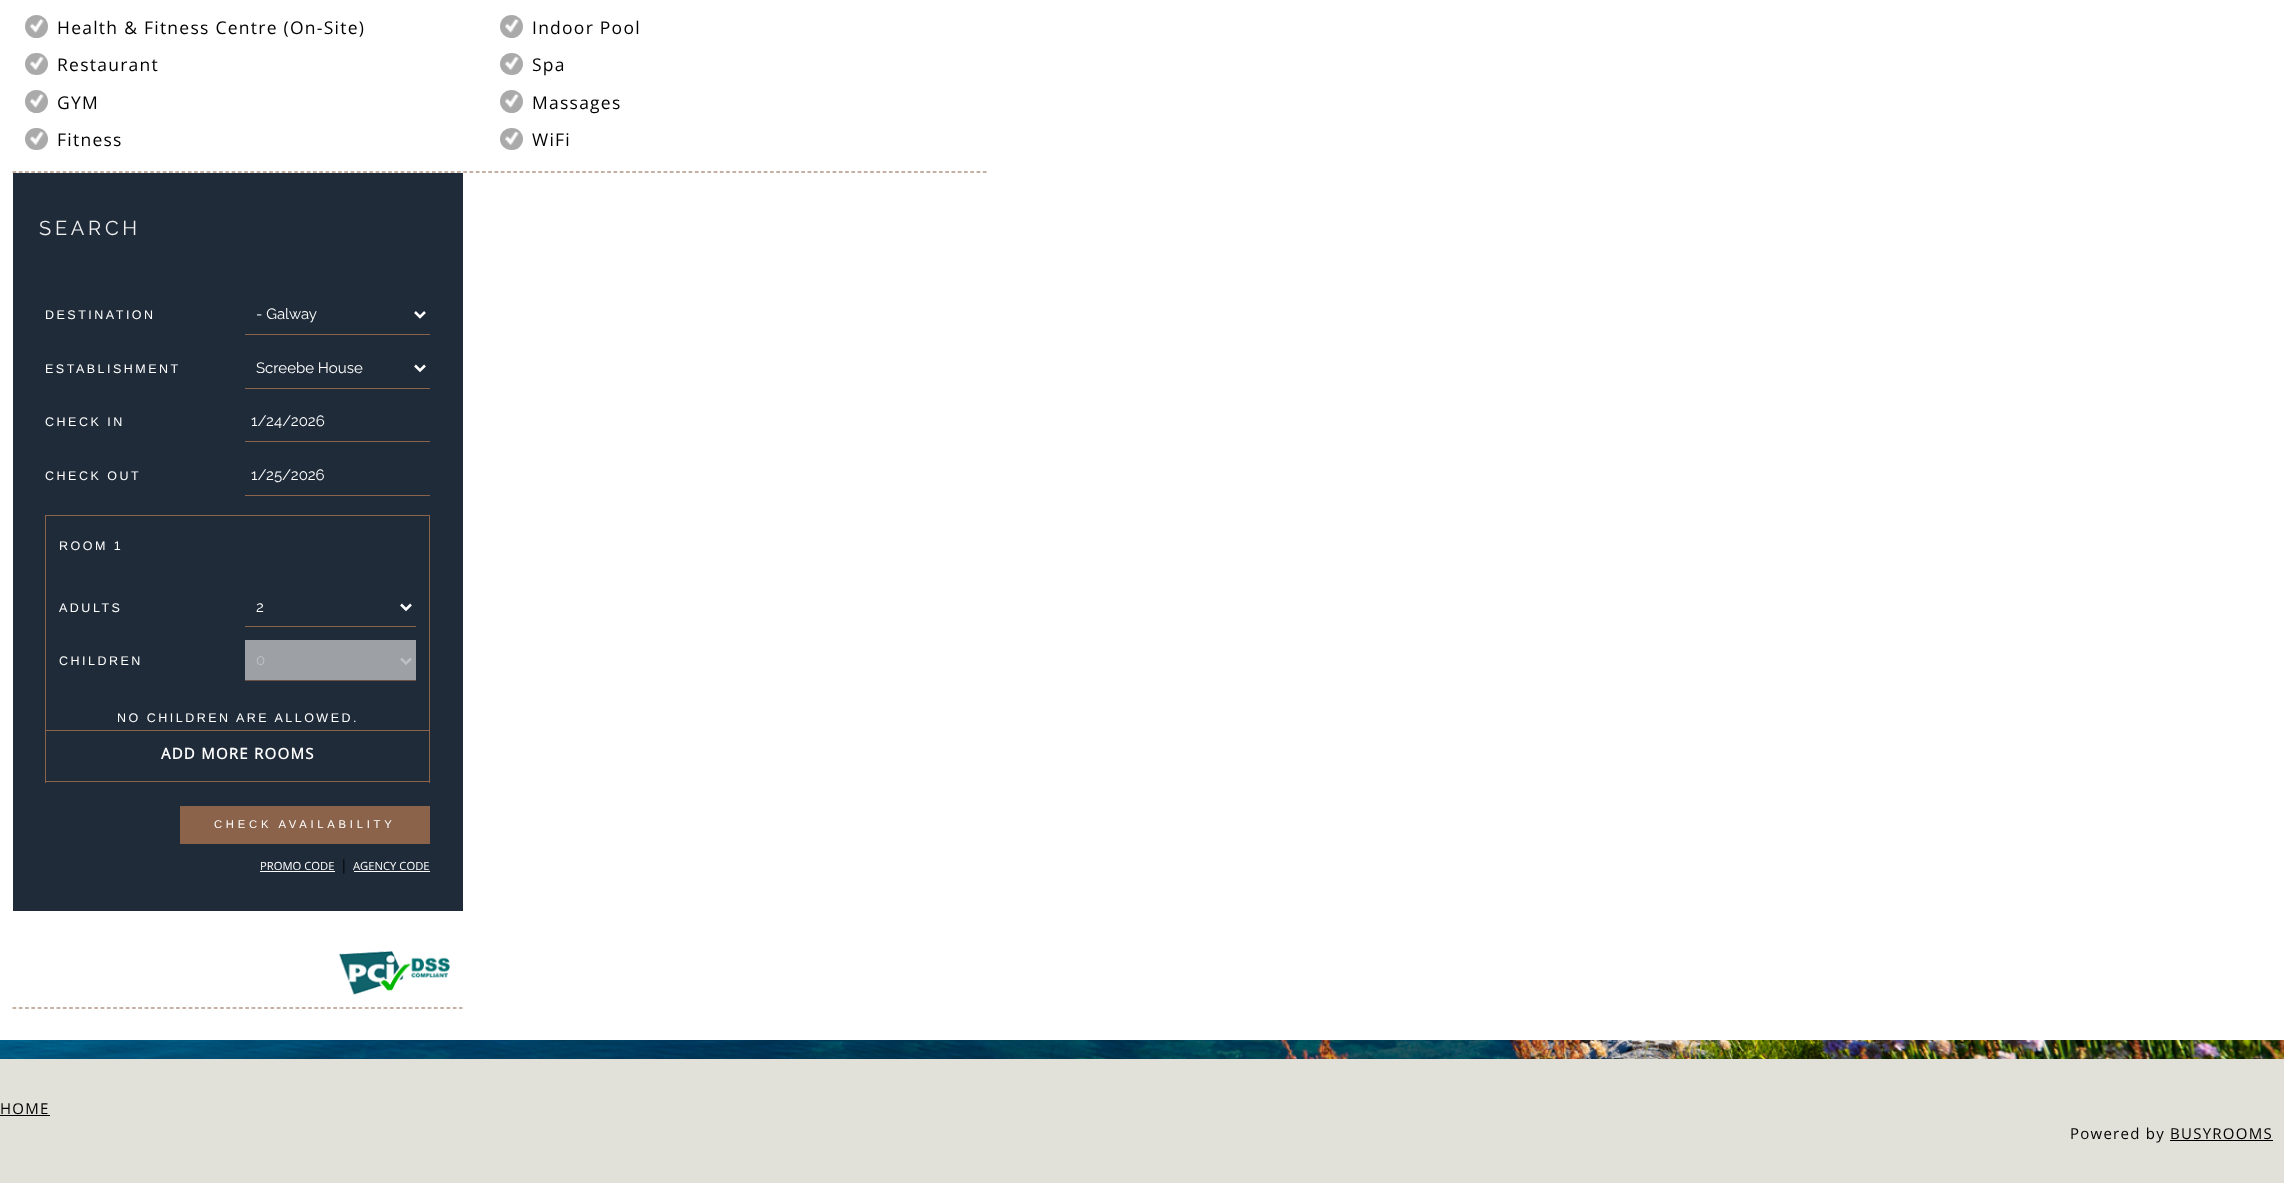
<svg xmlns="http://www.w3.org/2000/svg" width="2284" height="1183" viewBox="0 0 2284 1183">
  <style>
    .t1 { font: 17.5px Open Sans; letter-spacing: 1.25px; fill: #000; }
    .t2 { font: 20px Raleway; letter-spacing: 3.75px; fill: #efefef; }
    .t3 { font: 12.5px Liberation Sans; letter-spacing: 2.5px; fill: #fff; }
    .t4 { font: 15px Raleway; fill: #fff; }
    .t5 { font: 15px Raleway; fill: #bcbfc4; }
    .t6 { font: bold 15px Open Sans; letter-spacing: 1.25px; fill: #fff; }
    .t7 { font: 11.25px Liberation Sans; letter-spacing: 3.75px; fill: #fff; }
    .t8 { font: 11.25px Open Sans; fill: #fff; }
    .t9 { font: 14px Open Sans; letter-spacing: 1.25px; fill: #000; }
    .t10 { font: 15px Open Sans; letter-spacing: 1.25px; fill: #000; }
  </style>
  <rect width="100%" height="100%" fill="#fff"/>
  <image x="0" y="1040" width="2284" height="19" href="images/1.png"/>
  <path d="M12.5 172H987.5" fill="none" stroke="#8b634b" stroke-width="1.2" stroke-dasharray="3.75 2.51"/>
  <circle cx="36.5" cy="26.5" r="11.5" fill="#aaa"/>
  <image x="30" y="18" width="14" height="15" href="images/2.png"/>
  <text x="57" y="34" class="t1">Health &amp; Fitness Centre (On-Site)</text>
  <circle cx="511.5" cy="26.5" r="11.5" fill="#aaa"/>
  <image x="505" y="18" width="14" height="15" href="images/3.png"/>
  <text x="532" y="34" class="t1">Indoor Pool</text>
  <rect x="25" y="53" width="23" height="22" rx="11" fill="#aaa"/>
  <image x="30" y="56" width="14" height="14" href="images/4.png"/>
  <text x="57" y="71" class="t1">Restaurant</text>
  <rect x="500" y="53" width="23" height="22" rx="11" fill="#aaa"/>
  <image x="505" y="56" width="14" height="14" href="images/5.png"/>
  <text x="532" y="71" class="t1">Spa</text>
  <circle cx="36.5" cy="101.5" r="11.5" fill="#aaa"/>
  <image x="30" y="93" width="14" height="15" href="images/2.png"/>
  <text x="57" y="109" class="t1">GYM</text>
  <circle cx="511.5" cy="101.5" r="11.5" fill="#aaa"/>
  <image x="505" y="93" width="14" height="15" href="images/3.png"/>
  <text x="532" y="109" class="t1">Massages</text>
  <rect x="25" y="128" width="23" height="22" rx="11" fill="#aaa"/>
  <image x="30" y="131" width="14" height="14" href="images/4.png"/>
  <text x="57" y="146" class="t1">Fitness</text>
  <rect x="500" y="128" width="23" height="22" rx="11" fill="#aaa"/>
  <image x="505" y="131" width="14" height="14" href="images/5.png"/>
  <text x="532" y="146" class="t1">WiFi</text>
  <rect x="13" y="173" width="450" height="738" fill="#1f2b39"/>
  <text x="39" y="235" class="t2">SEARCH</text>
  <text x="45" y="319" class="t3">DESTINATION</text>
  <rect x="245" y="334" width="185" height="1" fill="#8b634b"/>
  <path d="M415 312L420 317L425 312" fill="none" stroke="#fff" stroke-width="2.5"/>
  <text x="256" y="319" class="t4">- Galway</text>
  <text x="45" y="373" class="t3">ESTABLISHMENT</text>
  <rect x="245" y="388" width="185" height="1" fill="#8b634b"/>
  <path d="M415 365.5L420 370.5L425 365.5" fill="none" stroke="#fff" stroke-width="2.5"/>
  <text x="256" y="373" class="t4">Screebe House</text>
  <text x="45" y="426" class="t3">CHECK IN</text>
  <rect x="245" y="441" width="185" height="1" fill="#8b634b"/>
  <text x="251" y="426" class="t4">1/24/2026</text>
  <text x="45" y="480" class="t3">CHECK OUT</text>
  <rect x="245" y="495" width="185" height="1" fill="#8b634b"/>
  <text x="251" y="480" class="t4">1/25/2026</text>
  <rect x="45.5" y="515.5" width="384" height="215" fill="none" stroke="#8b634b"/>
  <text x="59" y="550" class="t3">ROOM 1</text>
  <text x="59" y="612" class="t3">ADULTS</text>
  <rect x="245" y="626" width="171" height="1" fill="#8b634b"/>
  <path d="M401 604.5L406 609.5L411 604.5" fill="none" stroke="#fff" stroke-width="2.5"/>
  <text x="256" y="612" class="t4">2</text>
  <text x="59" y="665" class="t3">CHILDREN</text>
  <rect x="245" y="640" width="171" height="40" fill="#9da1a5"/>
  <rect x="245" y="680" width="171" height="1" fill="#6b5246"/>
  <path d="M401 658.5L406 663.5L411 658.5" fill="none" stroke="#bcbfc4" stroke-width="2.5"/>
  <text x="256" y="665" class="t5">0</text>
  <text x="117" y="722" class="t3">NO CHILDREN ARE ALLOWED.</text>
  <rect x="429" y="731" width="1" height="52" fill="#8b634b"/>
  <rect x="45" y="781" width="385" height="1" fill="#8b634b"/>
  <rect x="45" y="731" width="1" height="52" fill="#8b634b"/>
  <text x="161" y="759" class="t6">ADD MORE ROOMS</text>
  <rect x="180" y="806" width="250" height="38" fill="#8b634b"/>
  <text x="214" y="828" class="t7">CHECK AVAILABILITY</text>
  <text x="260" y="870" class="t8">PROMO CODE</text>
  <rect x="260" y="871" width="75" height="1" fill="#fff"/>
  <text x="340" y="870" class="t9">|</text>
  <text x="353" y="870" class="t8">AGENCY CODE</text>
  <rect x="354" y="871" width="76" height="1" fill="#fff"/>
  <path d="M12.5 1008H462.5" fill="none" stroke="#8b634b" stroke-width="1.2" stroke-dasharray="3.75 2.54"/>
  <image x="338" y="951" width="112" height="44" href="images/6.png"/>
  <rect x="0" y="1059" width="2284" height="124" fill="#e1e1da"/>
  <text x="0" y="1114" class="t10">HOME</text>
  <rect x="0" y="1115" width="50" height="1" fill="#000"/>
  <text x="2070" y="1139" class="t10">Powered by BUSYROOMS</text>
  <rect x="2170" y="1140" width="103" height="1" fill="#000"/>
</svg>
